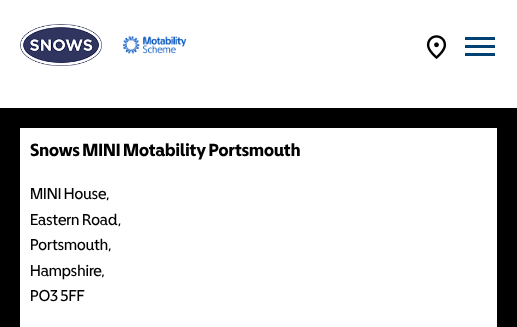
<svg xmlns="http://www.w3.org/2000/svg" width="517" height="327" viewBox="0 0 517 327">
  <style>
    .t1 { font: 600 18px 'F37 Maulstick'; fill: #000; }
    .t2 { font: 16px 'F37 Maulstick'; fill: #000; }
  </style>
  <rect width="100%" height="100%" fill="#fff"/>
  <image x="20" y="24" width="82" height="42" href="images/1.png"/>
  <image x="122" y="35" width="65" height="19" href="images/2.png"/>
  <image x="426" y="35" width="21" height="24" href="images/3.png"/>
  <rect x="465" y="53" width="30" height="3" fill="#004173"/>
  <rect x="465" y="37" width="30" height="3" fill="#004173"/>
  <rect x="465" y="45" width="30" height="3" fill="#004173"/>
  <rect x="0" y="108" width="517" height="219" fill="#000"/>
  <rect x="20" y="128" width="477" height="199" fill="#fff"/>
  <text x="30" y="156" class="t1">Snows MINI Motability Portsmouth</text>
  <text x="30" y="199" class="t2">MINI House,</text>
  <text x="30" y="225" class="t2">Eastern Road</text>
  <text x="118" y="225" class="t2">,</text>
  <text x="30" y="250" class="t2">Portsmouth,</text>
  <text x="30" y="276" class="t2">Hampshire,</text>
  <text x="30" y="301" class="t2">PO3 5FF</text>
</svg>
